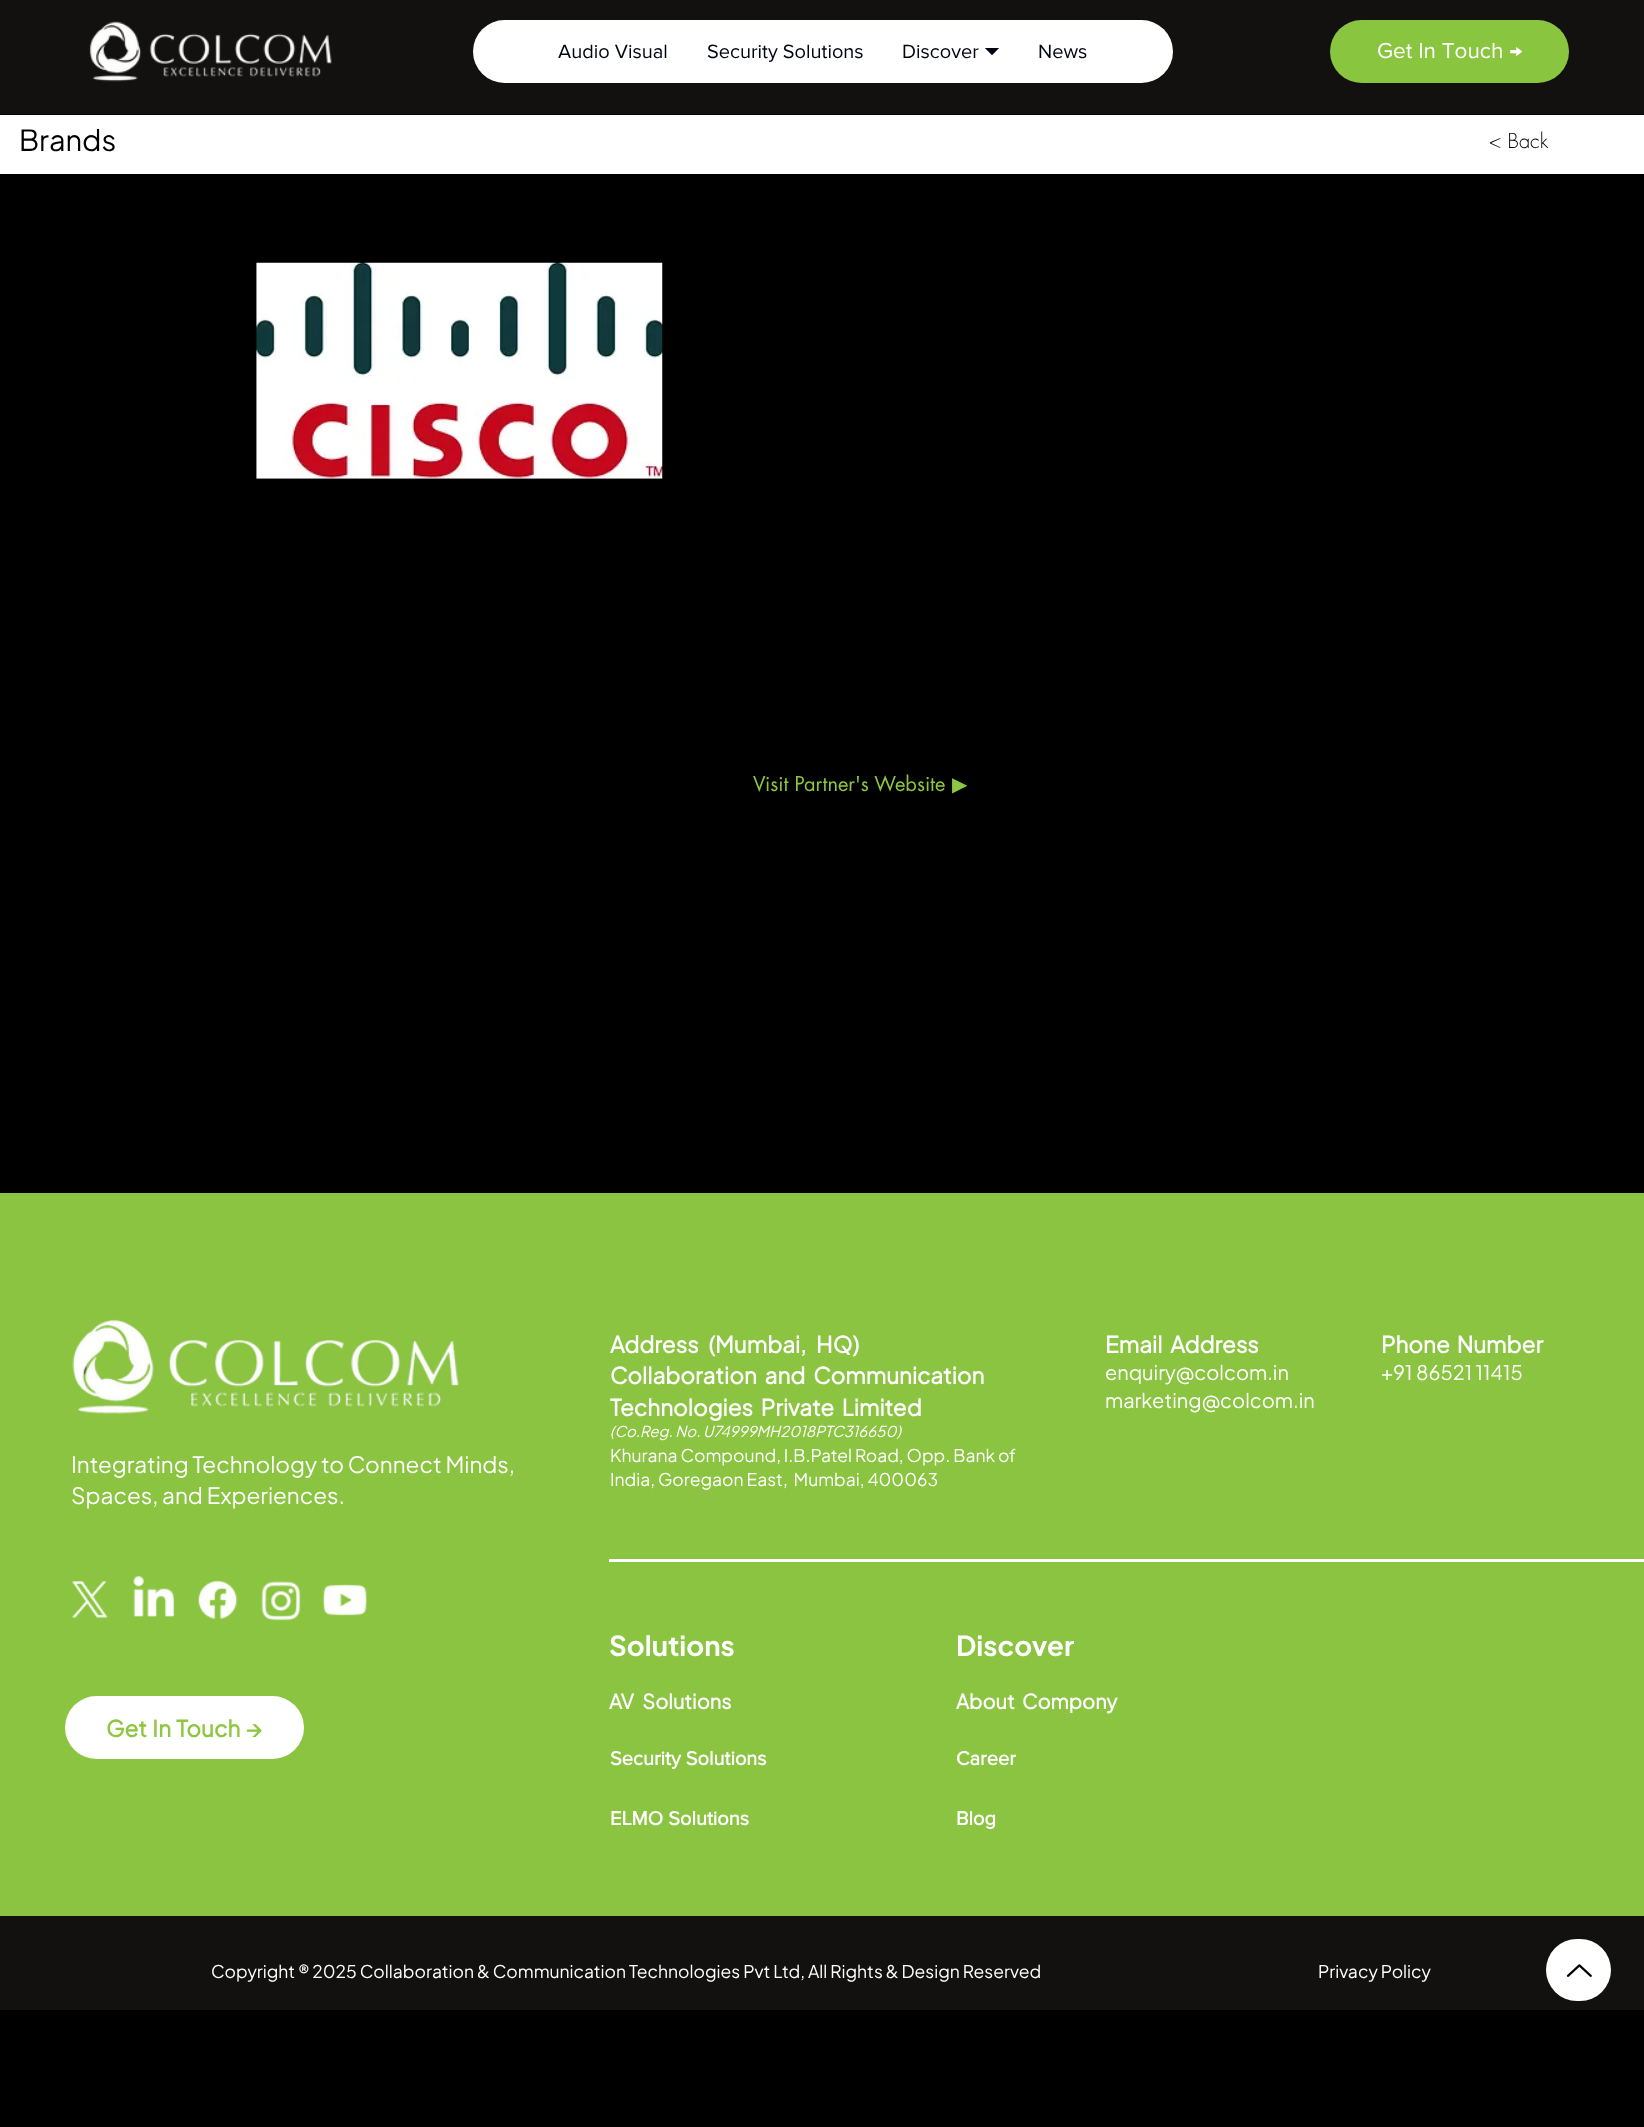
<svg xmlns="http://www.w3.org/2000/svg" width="1644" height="2127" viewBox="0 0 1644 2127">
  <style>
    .t1 { font: 20px 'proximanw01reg'; fill: #00060f; }
    .t2 { font: 20px FreeSans; fill: #00060f; }
    .t3 { font: 22.5px 'proximanw01reg'; fill: #fff; }
    .t4 { font: 29px Plus Jakarta Sans; fill: #000; }
    .t5 { font: 300 20px futura; fill: #000; }
    .t6 { font: 20px futura; fill: #8dc63f; }
    .t7 { font: 20px DejaVu Sans; fill: #8dc63f; }
    .t8 { font: bold 22.5px Plus Jakarta Sans; fill: #fff; }
    .t9 { font: italic 15px Plus Jakarta Sans; fill: #fff; }
    .t10 { font: 17.5px Plus Jakarta Sans; fill: #fff; }
    .t11 { font: 20px Plus Jakarta Sans; fill: #fff; }
    .t12 { font: 22.5px Plus Jakarta Sans; fill: #fff; }
    .t13 { font: bold 27.5px 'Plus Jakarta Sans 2'; fill: #fff; }
    .t14 { font: bold 20px Plus Jakarta Sans; fill: #fff; }
    .t15 { font: bold 22.5px Plus Jakarta Sans; fill: #8dc63f; }
    .t16 { font: bold 20px 'proximanw01reg'; fill: #fff; }
  </style>
  <rect width="100%" height="100%" fill="#000"/>
  <rect x="0" y="0" width="1644" height="114" fill="#13110f"/>
  <image x="89" y="21" width="243" height="61" href="images/1.png"/>
  <rect x="473" y="20" width="700" height="63" rx="31.5" fill="#fff"/>
  <text x="558" y="58" class="t1">Audio Visual</text>
  <text x="707" y="58" class="t1">Security Solutions</text>
  <text x="902" y="58" class="t1">Discover</text>
  <text x="984" y="58" class="t2">⏷</text>
  <text x="1038" y="58" class="t1">News</text>
  <rect x="1330" y="20" width="239" height="63" rx="31.5" fill="#8ac540"/>
  <text x="1377" y="58" class="t3">Get In Touch →</text>
  <rect x="0" y="115" width="1644" height="59" fill="#fff"/>
  <text x="19" y="151" class="t4">Brands</text>
  <text x="1489" y="148" class="t5">&lt; Back</text>
  <image x="256" y="262" width="407" height="217" href="images/2.png"/>
  <text x="753" y="791" class="t6">Visit Partner's Website</text>
  <text x="952" y="791" class="t7">▶</text>
  <rect x="0" y="1193" width="1644" height="723" fill="#8ac440"/>
  <image x="72" y="1319" width="387" height="95" href="images/3.png"/>
  <text x="610" y="1353" word-spacing="6" class="t8">Address (Mumbai, HQ)</text>
  <text x="610" y="1384" word-spacing="4" class="t8">Collaboration and Communication</text>
  <text x="610" y="1416" word-spacing="4" class="t8">Technologies Private Limited</text>
  <text x="610" y="1437" class="t9">(Co.Reg. No. U74999MH2018PTC316650)</text>
  <text x="610" y="1462" class="t10">Khurana Compound, I.B.Patel Road, Opp. Bank of</text>
  <text x="610" y="1486" class="t10" xml:space="preserve">India, Goregaon East,  Mumbai, 400063</text>
  <text x="1105" y="1353" word-spacing="4" class="t8">Email Address</text>
  <text x="1105" y="1380" class="t11">enquiry@colcom.in</text>
  <text x="1105" y="1408" class="t11">marketing@colcom.in</text>
  <text x="1381" y="1353" word-spacing="3" class="t8">Phone Number</text>
  <text x="1381" y="1380" class="t11">+91 86521 11415</text>
  <text x="71" y="1473" class="t12">Integrating Technology to Connect Minds,</text>
  <text x="71" y="1504" class="t12">Spaces, and Experiences.</text>
  <rect x="609" y="1559" width="1035" height="3" fill="#fff"/>
  <image x="71" y="1580" width="37" height="38" href="images/4.png"/>
  <image x="133" y="1576" width="42" height="41" href="images/5.png"/>
  <image x="197" y="1580" width="41" height="39" href="images/6.png"/>
  <image x="261" y="1581" width="40" height="40" href="images/7.png"/>
  <image x="322" y="1584" width="45" height="32" href="images/8.png"/>
  <text x="609" y="1656" class="t13">Solutions</text>
  <text x="956" y="1656" class="t13">Discover</text>
  <text x="609" y="1709" word-spacing="5" class="t14">AV Solutions</text>
  <text x="956" y="1709" word-spacing="4" class="t14">About Compony</text>
  <rect x="65" y="1696" width="239" height="63" rx="31.5" fill="#fff"/>
  <text x="106" y="1737" word-spacing="1.5" class="t15">Get In Touch →</text>
  <text x="610" y="1765" class="t16">Security Solutions</text>
  <text x="956" y="1765" class="t16">Career</text>
  <text x="610" y="1825" class="t16">ELMO Solutions</text>
  <text x="956" y="1825" class="t16">Blog</text>
  <rect x="0" y="1916" width="1644" height="94" fill="#13110f"/>
  <text x="211" y="1978" class="t10">Copyright ® 2025 Collaboration &amp; Communication Technologies Pvt Ltd, All Rights &amp; Design Reserved</text>
  <text x="1318" y="1978" class="t10">Privacy Policy</text>
  <rect x="1546" y="1939" width="65" height="62" rx="31" fill="#fff"/>
  <image x="1566" y="1964" width="26" height="13" href="images/9.png"/>
</svg>
